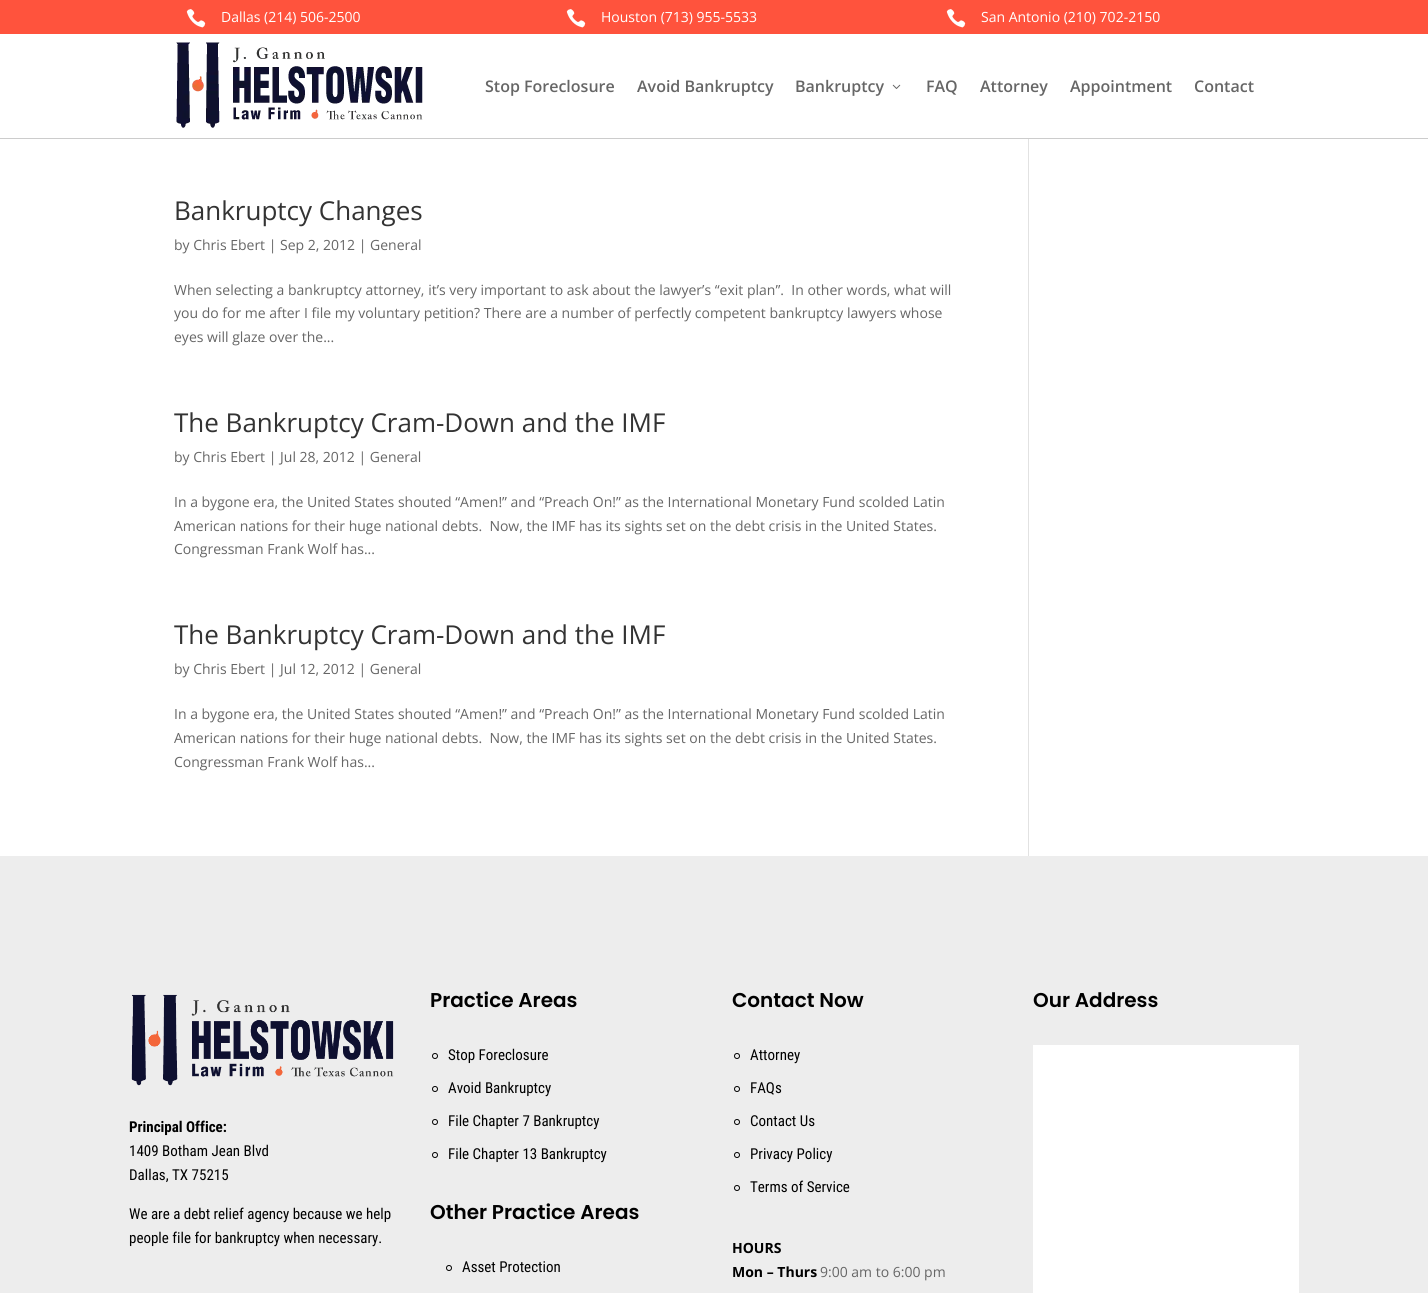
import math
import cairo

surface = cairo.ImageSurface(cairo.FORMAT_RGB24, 1428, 1293)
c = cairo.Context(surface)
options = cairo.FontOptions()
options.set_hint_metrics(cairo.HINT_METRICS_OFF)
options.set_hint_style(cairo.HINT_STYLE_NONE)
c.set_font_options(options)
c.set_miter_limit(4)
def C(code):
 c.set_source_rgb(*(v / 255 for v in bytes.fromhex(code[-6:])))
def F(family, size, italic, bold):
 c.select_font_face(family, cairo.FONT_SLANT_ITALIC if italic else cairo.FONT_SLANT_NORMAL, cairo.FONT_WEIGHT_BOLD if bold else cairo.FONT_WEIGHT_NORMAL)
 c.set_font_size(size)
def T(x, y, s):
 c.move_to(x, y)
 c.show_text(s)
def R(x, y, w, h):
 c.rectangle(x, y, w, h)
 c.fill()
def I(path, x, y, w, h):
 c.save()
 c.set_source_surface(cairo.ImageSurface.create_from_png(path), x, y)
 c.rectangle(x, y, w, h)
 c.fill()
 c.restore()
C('ffffff')
c.paint()
C('ff533d')
R(0,0,1428,34)
I('1.png',186,9,20,19)
F('Open Sans',14,0,0)
C('ffffff')
T(221,22,'Dallas (214) 506-2500')
I('1.png',566,9,20,19)
T(601,22,'Houston (713) 955-5533')
I('1.png',946,9,20,19)
T(981,22,'San Antonio (210) 702-2150')
C('cccccc')
R(0,138,1428,1)
I('2.png',176,42,247,86)
F('Open Sans SemiBold',16,0,0)
C('666666')
T(485,92,'Stop Foreclosure')
T(637,92,'Avoid Bankruptcy')
T(795,92,'Bankruptcy')
I('3.png',892,84,9,5)
T(926,92,'FAQ')
T(980,92,'Attorney')
T(1070,92,'Appointment')
T(1194,92,'Contact')
F('Open Sans',26,0,0)
C('333333')
T(174,220,'Bankruptcy Changes')
F('Open Sans',14,0,0)
C('666666')
T(174,250,'by Chris Ebert | Sep 2, 2012 | General')
T(174,295,'When selecting a bankruptcy attorney, it’s very important to ask about the lawyer’s “exit plan”.  In other words, what will')
T(174,318,'you do for me after I file my voluntary petition? There are a number of perfectly competent bankruptcy lawyers whose')
T(174,342,'eyes will glaze over the...')
F('Open Sans',26,0,0)
C('333333')
T(174,432,'The Bankruptcy Cram-Down and the IMF')
F('Open Sans',14,0,0)
C('666666')
T(174,462,'by Chris Ebert | Jul 28, 2012 | General')
T(174,507,'In a bygone era, the United States shouted “Amen!” and “Preach On!” as the International Monetary Fund scolded Latin')
T(174,531,'American nations for their huge national debts.  Now, the IMF has its sights set on the debt crisis in the United States.')
T(174,554,'Congressman Frank Wolf has...')
F('Open Sans',26,0,0)
C('333333')
T(174,644,'The Bankruptcy Cram-Down and the IMF')
F('Open Sans',14,0,0)
C('666666')
T(174,674,'by Chris Ebert | Jul 12, 2012 | General')
T(174,719,'In a bygone era, the United States shouted “Amen!” and “Preach On!” as the International Monetary Fund scolded Latin')
T(174,743,'American nations for their huge national debts.  Now, the IMF has its sights set on the debt crisis in the United States.')
T(174,767,'Congressman Frank Wolf has...')
C('e2e2e2')
R(1028,139,1,717)
C('ededed')
R(0,856,1428,437)
F('Poppins SemiBold',20,0,0)
C('000000')
T(430,1007,'Practice Areas')
c.new_path()
c.arc(435,1056,2.5,0,2 * math.pi)
c.set_line_width(1)
c.stroke()
F('Roboto Condensed',15,0,0)
T(448,1060,'Stop Foreclosure')
c.new_path()
c.arc(435,1089,2.5,0,2 * math.pi)
c.stroke()
T(448,1093,'Avoid Bankruptcy')
c.new_path()
c.arc(435,1122,2.5,0,2 * math.pi)
c.stroke()
T(448,1126,'File Chapter 7 Bankruptcy')
c.new_path()
c.arc(435,1155,2.5,0,2 * math.pi)
c.stroke()
T(448,1159,'File Chapter 13 Bankruptcy')
F('Poppins SemiBold',20,0,0)
T(430,1219,'Other Practice Areas')
c.new_path()
c.arc(449,1268,2.5,0,2 * math.pi)
c.stroke()
F('Roboto Condensed',15,0,0)
T(462,1272,'Asset Protection')
F('Poppins SemiBold',20,0,0)
T(732,1007,'Contact Now')
c.new_path()
c.arc(737,1056,2.5,0,2 * math.pi)
c.stroke()
F('Roboto Condensed',15,0,0)
T(750,1060,'Attorney')
c.new_path()
c.arc(737,1089,2.5,0,2 * math.pi)
c.stroke()
T(750,1093,'FAQs')
c.new_path()
c.arc(737,1122,2.5,0,2 * math.pi)
c.stroke()
T(750,1126,'Contact Us')
c.new_path()
c.arc(737,1155,2.5,0,2 * math.pi)
c.stroke()
T(750,1159,'Privacy Policy')
c.new_path()
c.arc(737,1188,2.5,0,2 * math.pi)
c.stroke()
T(750,1192,'Terms of Service')
F('Open Sans',14,0,1)
T(732,1253,'HOURS')
T(732,1277,'Mon – Thurs')
F('Open Sans',14,0,0)
C('666666')
T(820,1277,'9:00 am to 6:00 pm')
F('Poppins SemiBold',20,0,0)
C('000000')
T(1033,1007,'Our Address')
C('ffffff')
R(1033,1045,266,248)
I('4.png',131,994,263,92)
F('Roboto Condensed',15,0,1)
C('000000')
T(129,1132,'Principal Office:')
F('Roboto Condensed',15,0,0)
T(129,1156,'1409 Botham Jean Blvd')
T(129,1180,'Dallas, TX 75215')
T(129,1219,'We are a debt relief agency because we help')
T(129,1243,'people file for bankruptcy when necessary.')
surface.write_to_png('o.png')
